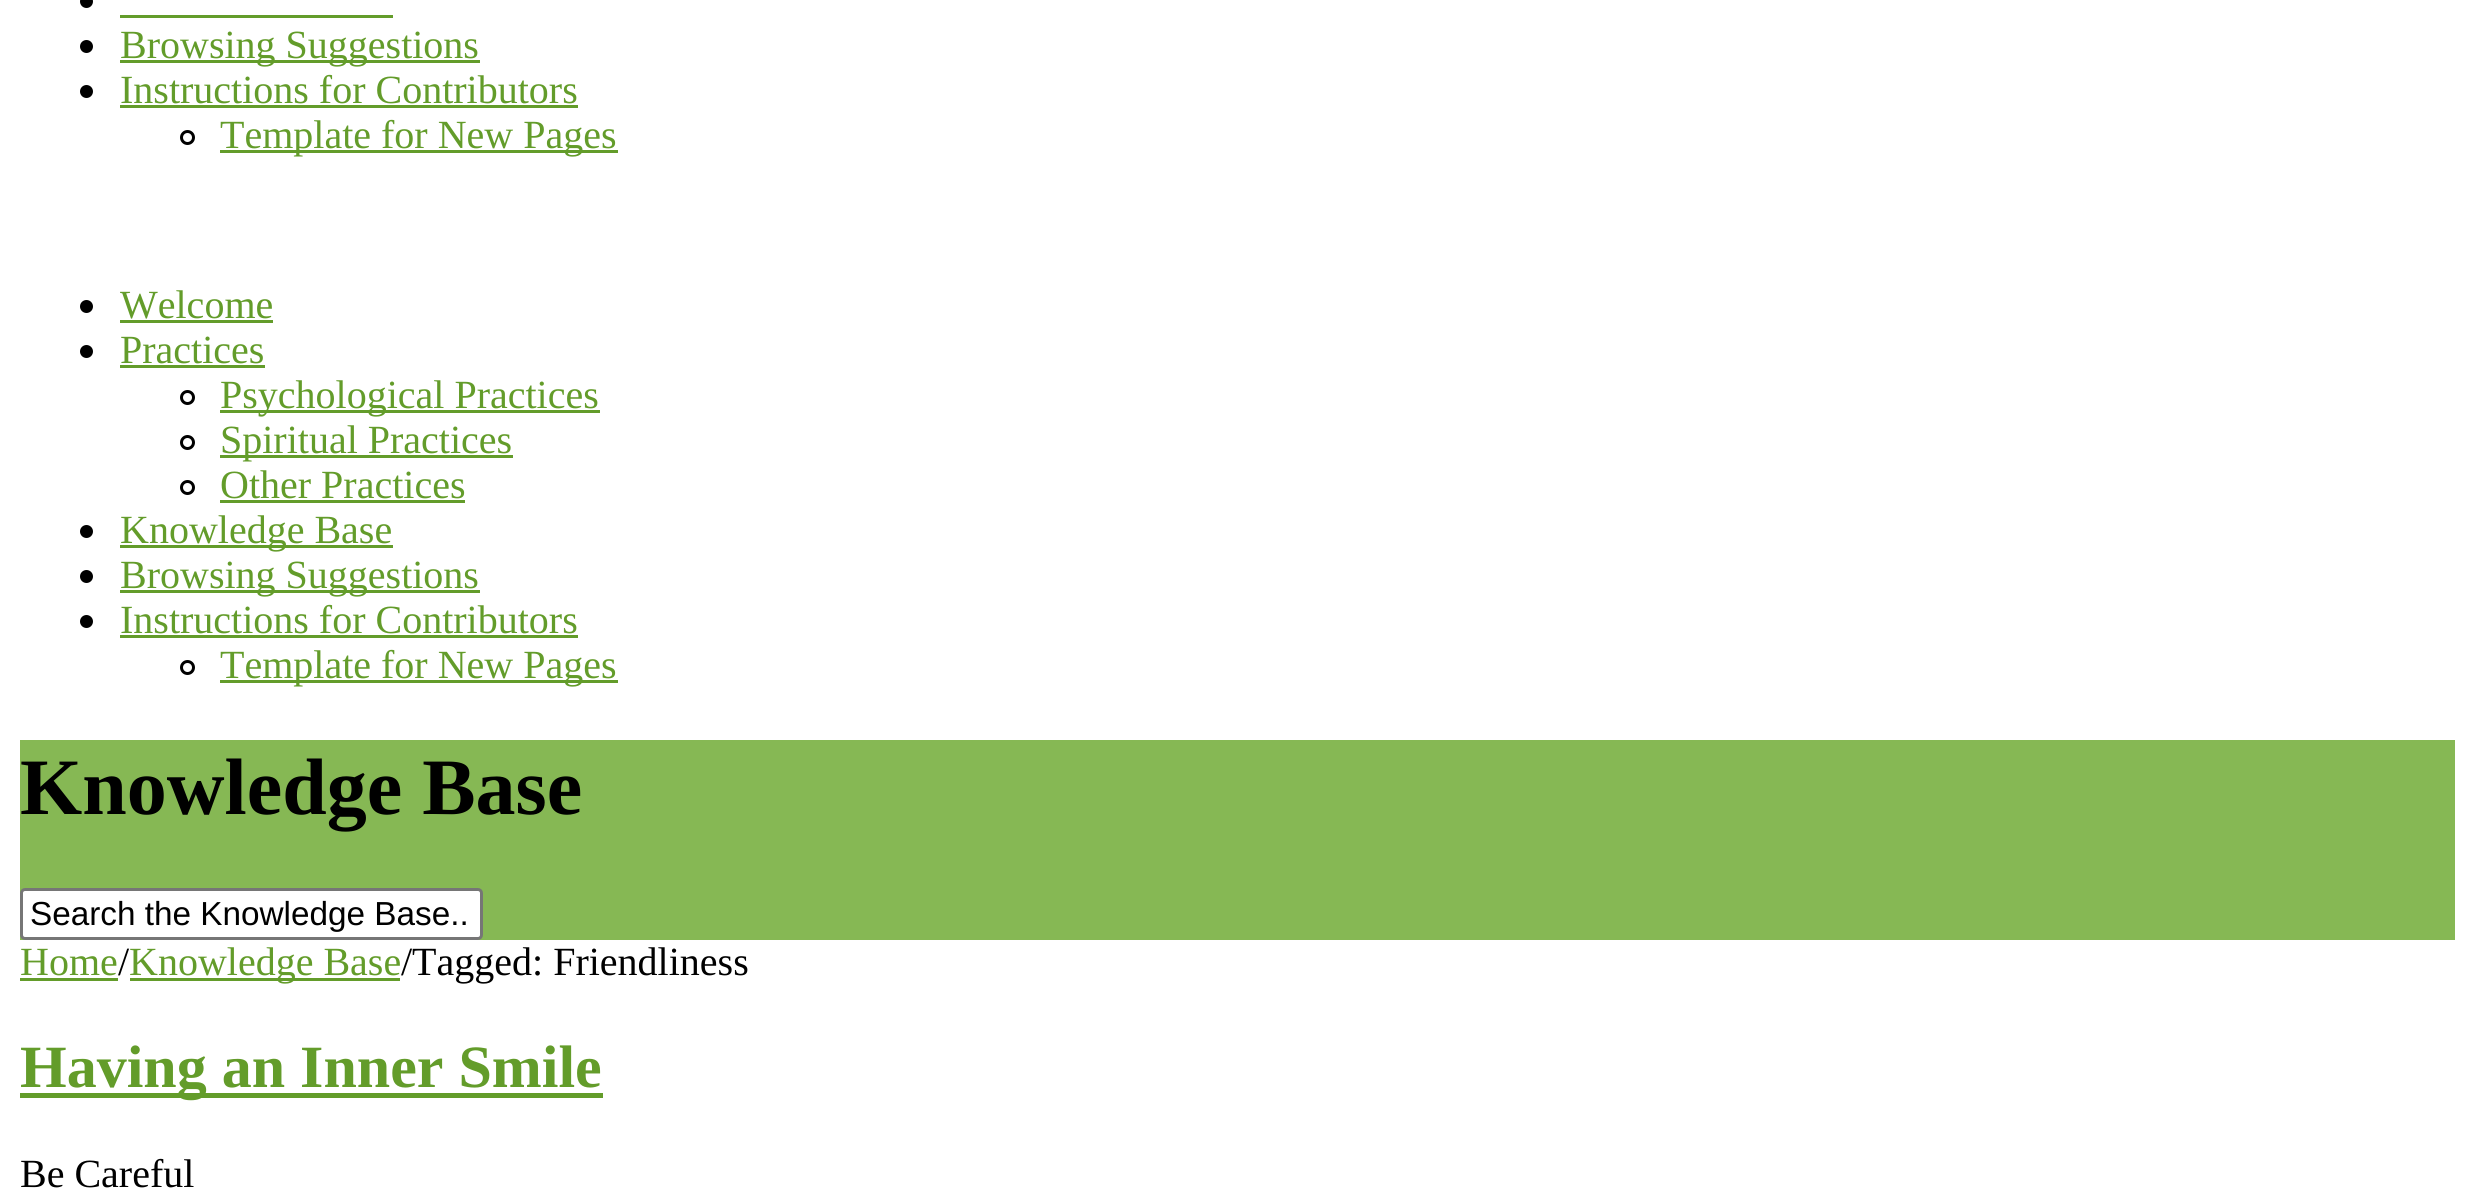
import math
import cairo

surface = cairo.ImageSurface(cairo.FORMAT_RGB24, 2474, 1189)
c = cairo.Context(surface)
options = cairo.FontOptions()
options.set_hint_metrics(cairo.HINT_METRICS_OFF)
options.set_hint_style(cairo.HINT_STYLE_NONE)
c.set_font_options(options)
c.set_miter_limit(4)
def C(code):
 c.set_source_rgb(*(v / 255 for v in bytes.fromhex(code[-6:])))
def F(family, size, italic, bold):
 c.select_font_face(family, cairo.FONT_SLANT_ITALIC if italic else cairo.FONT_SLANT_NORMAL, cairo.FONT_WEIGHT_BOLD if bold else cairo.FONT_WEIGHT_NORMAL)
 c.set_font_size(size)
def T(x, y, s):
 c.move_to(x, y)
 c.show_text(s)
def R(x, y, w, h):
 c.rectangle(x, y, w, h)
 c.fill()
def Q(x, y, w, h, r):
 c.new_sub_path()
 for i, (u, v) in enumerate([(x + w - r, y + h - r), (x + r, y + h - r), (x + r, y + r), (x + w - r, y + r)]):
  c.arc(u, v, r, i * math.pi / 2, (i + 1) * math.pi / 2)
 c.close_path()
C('ffffff')
c.paint()
C('000000')
c.arc(86.5,1.5,6.5,0,2 * math.pi)
c.fill()
C('639c2a')
R(120,15,273,3)
C('000000')
c.arc(86.5,46.5,6.5,0,2 * math.pi)
c.fill()
C('639c2a')
R(120,60,360,3)
F('Liberation Serif',40,0,0)
T(120,58,'Browsing Suggestions')
C('000000')
c.new_path()
c.arc(86.5,91.5,6.5,0,2 * math.pi)
c.fill()
C('639c2a')
T(120,103,'Instructions for Contributors')
R(120,105,458,3)
c.new_path()
c.arc(187.5,137.5,6,0,2 * math.pi)
C('000000')
c.set_line_width(3)
c.stroke()
C('639c2a')
R(220,150,398,3)
T(220,148,'Template for New Pages')
C('000000')
c.new_path()
c.arc(86.5,306.5,6.5,0,2 * math.pi)
c.fill()
C('639c2a')
T(120,318,'Welcome')
R(120,320,153,3)
C('000000')
c.new_path()
c.arc(86.5,351.5,6.5,0,2 * math.pi)
c.fill()
C('639c2a')
T(120,363,'Practices')
R(120,365,145,3)
c.new_path()
c.arc(187.5,397.5,6,0,2 * math.pi)
C('000000')
c.stroke()
C('639c2a')
R(220,410,380,3)
T(220,408,'Psychological Practices')
c.new_path()
c.arc(187.5,442.5,6,0,2 * math.pi)
C('000000')
c.stroke()
C('639c2a')
R(220,455,293,3)
T(220,453,'Spiritual Practices')
c.new_path()
c.arc(187.5,487.5,6,0,2 * math.pi)
C('000000')
c.stroke()
C('639c2a')
T(220,498,'Other Practices')
R(220,500,245,3)
C('000000')
c.new_path()
c.arc(86.5,531.5,6.5,0,2 * math.pi)
c.fill()
C('639c2a')
R(120,545,273,3)
T(120,543,'Knowledge Base')
C('000000')
c.new_path()
c.arc(86.5,576.5,6.5,0,2 * math.pi)
c.fill()
C('639c2a')
R(120,590,360,3)
T(120,588,'Browsing Suggestions')
C('000000')
c.new_path()
c.arc(86.5,621.5,6.5,0,2 * math.pi)
c.fill()
C('639c2a')
T(120,633,'Instructions for Contributors')
R(120,635,458,3)
c.new_path()
c.arc(187.5,667.5,6,0,2 * math.pi)
C('000000')
c.stroke()
C('639c2a')
R(220,680,398,3)
T(220,678,'Template for New Pages')
C('86b854')
R(20,740,2435,200)
F('Liberation Serif',80,0,1)
C('000000')
T(20,814,'Knowledge Base')
C('ffffff')
Q(21.5,889.5,460,49,3.5)
c.fill_preserve()
C('767676')
c.stroke()
F('Liberation Sans',33.3,0,0)
C('000000')
T(30,925,'Search the Knowledge Base..')
F('Liberation Serif',40,0,0)
C('639c2a')
T(20,975,'Home')
R(20,978,98,3)
C('000000')
T(118,975,'/')
C('639c2a')
R(130,978,270,3)
T(129,975,'Knowledge Base')
C('000000')
T(401,975,'/Tagged: Friendliness')
C('639c2a')
R(20,1093,583,5)
F('Liberation Serif',60,0,1)
T(20,1087,'Having an Inner Smile')
F('Liberation Serif',40,0,0)
C('000000')
T(20,1187,'Be Careful')
surface.write_to_png('o.png')
